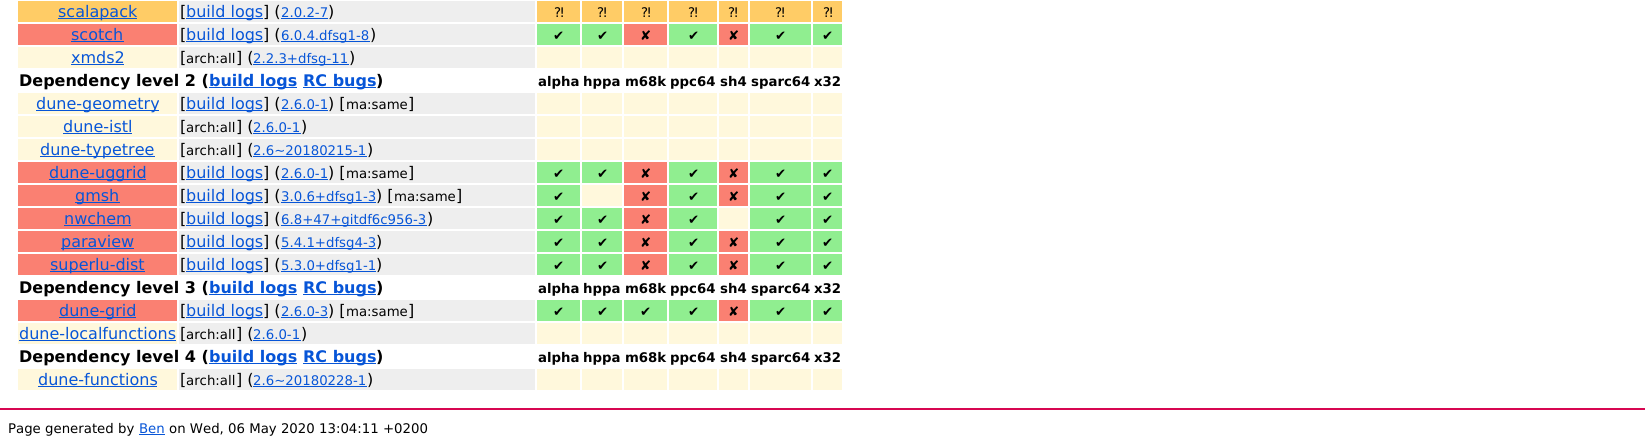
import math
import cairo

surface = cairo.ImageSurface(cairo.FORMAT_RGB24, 1645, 445)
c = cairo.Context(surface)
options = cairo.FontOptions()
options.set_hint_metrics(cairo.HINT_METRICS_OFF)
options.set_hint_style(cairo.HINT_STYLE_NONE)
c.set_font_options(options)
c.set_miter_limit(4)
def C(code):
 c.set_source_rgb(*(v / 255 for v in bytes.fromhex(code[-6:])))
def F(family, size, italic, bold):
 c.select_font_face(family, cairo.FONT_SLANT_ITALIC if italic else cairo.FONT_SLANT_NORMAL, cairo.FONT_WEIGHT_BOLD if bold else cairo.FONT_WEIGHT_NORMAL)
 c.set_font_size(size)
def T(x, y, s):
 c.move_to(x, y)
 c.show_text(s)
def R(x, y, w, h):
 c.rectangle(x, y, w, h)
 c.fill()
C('ffffff')
c.paint()
C('ffcc66')
R(18,1,159,21)
C('0755d7')
R(58,18,79,1)
F('DejaVu Sans',16,0,0)
T(58,17,'scalapack')
C('eeeeee')
R(179,1,356,21)
C('000000')
T(180,17,'[')
C('0755d7')
R(186,18,77,1)
T(186,17,'build logs')
C('000000')
T(263,17,'] (')
F('DejaVu Sans',13.3,0,0)
C('0755d7')
T(281,17,'2.0.2-7')
R(281,18,47,1)
F('DejaVu Sans',16,0,0)
C('000000')
T(328,17,')')
C('ffcc66')
R(537,1,43,21)
F('DejaVu Sans',13.3,0,0)
C('000000')
T(554,17,'⁈')
C('ffcc66')
R(582,1,40,21)
C('000000')
T(597,17,'⁈')
C('ffcc66')
R(624,1,43,21)
C('000000')
T(641,17,'⁈')
C('ffcc66')
R(669,1,48,21)
C('000000')
T(688,17,'⁈')
C('ffcc66')
R(719,1,29,21)
C('000000')
T(728,17,'⁈')
C('ffcc66')
R(750,1,61,21)
C('000000')
T(775,17,'⁈')
C('ffcc66')
R(813,1,29,21)
C('000000')
T(823,17,'⁈')
C('fa8072')
R(18,24,159,21)
F('DejaVu Sans',16,0,0)
C('0755d7')
T(71,40,'scotch')
R(71,41,53,1)
C('eeeeee')
R(179,24,356,21)
C('000000')
T(180,40,'[')
C('0755d7')
R(186,41,77,1)
T(186,40,'build logs')
C('000000')
T(263,40,'] (')
C('0755d7')
R(281,41,89,1)
F('DejaVu Sans',13.3,0,0)
T(281,40,'6.0.4.dfsg1-8')
F('DejaVu Sans',16,0,0)
C('000000')
T(370,40,')')
C('90ee90')
R(537,24,43,21)
F('DejaVu Sans',13.3,0,0)
C('000000')
T(553,40,'✔')
C('90ee90')
R(582,24,40,21)
C('000000')
T(597,40,'✔')
C('fa8072')
R(624,24,43,21)
C('000000')
T(640,40,'✘')
C('90ee90')
R(669,24,48,21)
C('000000')
T(688,40,'✔')
C('fa8072')
R(719,24,29,21)
C('000000')
T(728,40,'✘')
C('90ee90')
R(750,24,61,21)
C('000000')
T(775,40,'✔')
C('90ee90')
R(813,24,29,21)
C('000000')
T(822,40,'✔')
C('fff8dc')
R(18,47,159,21)
F('DejaVu Sans',16,0,0)
C('0755d7')
T(71,63,'xmds2')
R(71,64,53,1)
C('eeeeee')
R(179,47,356,21)
C('000000')
T(180,63,'[')
F('DejaVu Sans',13.3,0,0)
T(186,63,'arch:all')
F('DejaVu Sans',16,0,0)
T(236,63,'] (')
C('0755d7')
R(253,64,96,1)
F('DejaVu Sans',13.3,0,0)
T(253,63,'2.2.3+dfsg-11')
F('DejaVu Sans',16,0,0)
C('000000')
T(349,63,')')
C('fff8dc')
R(537,47,43,21)
R(582,47,40,21)
R(624,47,43,21)
R(669,47,48,21)
R(719,47,29,21)
R(750,47,61,21)
R(813,47,29,21)
F('DejaVu Sans',16,0,1)
C('000000')
T(19,86,'Dependency level 2 (')
C('0755d7')
R(209,87,88,1)
T(209,86,'build logs')
R(303,87,73,1)
T(303,86,'RC bugs')
C('000000')
T(376,86,')')
F('DejaVu Sans',13.3,0,1)
T(538,86,'alpha')
T(583,86,'hppa')
T(625,86,'m68k')
T(670,86,'ppc64')
T(720,86,'sh4')
T(751,86,'sparc64')
T(814,86,'x32')
C('fff8dc')
R(18,93,159,21)
C('0755d7')
R(36,110,123,1)
F('DejaVu Sans',16,0,0)
T(36,109,'dune-geometry')
C('eeeeee')
R(179,93,356,21)
C('000000')
T(180,109,'[')
C('0755d7')
R(186,110,77,1)
T(186,109,'build logs')
C('000000')
T(263,109,'] (')
F('DejaVu Sans',13.3,0,0)
C('0755d7')
T(281,109,'2.6.0-1')
R(281,110,47,1)
F('DejaVu Sans',16,0,0)
C('000000')
T(328,109,') [')
F('DejaVu Sans',13.3,0,0)
T(346,109,'ma:same')
F('DejaVu Sans',16,0,0)
T(408,109,']')
C('fff8dc')
R(537,93,43,21)
R(582,93,40,21)
R(624,93,43,21)
R(669,93,48,21)
R(719,93,29,21)
R(750,93,61,21)
R(813,93,29,21)
R(18,116,159,21)
C('0755d7')
T(63,132,'dune-istl')
R(63,133,69,1)
C('eeeeee')
R(179,116,356,21)
C('000000')
T(180,132,'[')
F('DejaVu Sans',13.3,0,0)
T(186,132,'arch:all')
F('DejaVu Sans',16,0,0)
T(236,132,'] (')
F('DejaVu Sans',13.3,0,0)
C('0755d7')
T(253,132,'2.6.0-1')
R(253,133,48,1)
F('DejaVu Sans',16,0,0)
C('000000')
T(301,132,')')
C('fff8dc')
R(537,116,43,21)
R(582,116,40,21)
R(624,116,43,21)
R(669,116,48,21)
R(719,116,29,21)
R(750,116,61,21)
R(813,116,29,21)
R(18,139,159,21)
C('0755d7')
R(40,156,115,1)
T(40,155,'dune-typetree')
C('eeeeee')
R(179,139,356,21)
C('000000')
T(180,155,'[')
F('DejaVu Sans',13.3,0,0)
T(186,155,'arch:all')
F('DejaVu Sans',16,0,0)
T(236,155,'] (')
F('DejaVu Sans',13.3,0,0)
C('0755d7')
T(253,155,'2.6~20180215-1')
R(253,156,114,1)
F('DejaVu Sans',16,0,0)
C('000000')
T(367,155,')')
C('fff8dc')
R(537,139,43,21)
R(582,139,40,21)
R(624,139,43,21)
R(669,139,48,21)
R(719,139,29,21)
R(750,139,61,21)
R(813,139,29,21)
C('fa8072')
R(18,162,159,21)
C('0755d7')
R(49,179,97,1)
T(49,178,'dune-uggrid')
C('eeeeee')
R(179,162,356,21)
C('000000')
T(180,178,'[')
C('0755d7')
R(186,179,77,1)
T(186,178,'build logs')
C('000000')
T(263,178,'] (')
F('DejaVu Sans',13.3,0,0)
C('0755d7')
T(281,178,'2.6.0-1')
R(281,179,47,1)
F('DejaVu Sans',16,0,0)
C('000000')
T(328,178,') [')
F('DejaVu Sans',13.3,0,0)
T(346,178,'ma:same')
F('DejaVu Sans',16,0,0)
T(408,178,']')
C('90ee90')
R(537,162,43,21)
F('DejaVu Sans',13.3,0,0)
C('000000')
T(553,178,'✔')
C('90ee90')
R(582,162,40,21)
C('000000')
T(597,178,'✔')
C('fa8072')
R(624,162,43,21)
C('000000')
T(640,178,'✘')
C('90ee90')
R(669,162,48,21)
C('000000')
T(688,178,'✔')
C('fa8072')
R(719,162,29,21)
C('000000')
T(728,178,'✘')
C('90ee90')
R(750,162,61,21)
C('000000')
T(775,178,'✔')
C('90ee90')
R(813,162,29,21)
C('000000')
T(822,178,'✔')
C('fa8072')
R(18,185,159,21)
C('0755d7')
R(75,202,45,1)
F('DejaVu Sans',16,0,0)
T(75,201,'gmsh')
C('eeeeee')
R(179,185,356,21)
C('000000')
T(180,201,'[')
C('0755d7')
R(186,202,77,1)
T(186,201,'build logs')
C('000000')
T(263,201,'] (')
C('0755d7')
R(281,202,95,1)
F('DejaVu Sans',13.3,0,0)
T(281,201,'3.0.6+dfsg1-3')
F('DejaVu Sans',16,0,0)
C('000000')
T(376,201,') [')
F('DejaVu Sans',13.3,0,0)
T(394,201,'ma:same')
F('DejaVu Sans',16,0,0)
T(456,201,']')
C('90ee90')
R(537,185,43,21)
F('DejaVu Sans',13.3,0,0)
C('000000')
T(553,201,'✔')
C('fff8dc')
R(582,185,40,21)
C('fa8072')
R(624,185,43,21)
C('000000')
T(640,201,'✘')
C('90ee90')
R(669,185,48,21)
C('000000')
T(688,201,'✔')
C('fa8072')
R(719,185,29,21)
C('000000')
T(728,201,'✘')
C('90ee90')
R(750,185,61,21)
C('000000')
T(775,201,'✔')
C('90ee90')
R(813,185,29,21)
C('000000')
T(822,201,'✔')
C('fa8072')
R(18,208,159,21)
F('DejaVu Sans',16,0,0)
C('0755d7')
T(64,224,'nwchem')
R(64,225,67,1)
C('eeeeee')
R(179,208,356,21)
C('000000')
T(180,224,'[')
C('0755d7')
R(186,225,77,1)
T(186,224,'build logs')
C('000000')
T(263,224,'] (')
C('0755d7')
R(281,225,146,1)
F('DejaVu Sans',13.3,0,0)
T(281,224,'6.8+47+gitdf6c956-3')
F('DejaVu Sans',16,0,0)
C('000000')
T(427,224,')')
C('90ee90')
R(537,208,43,21)
F('DejaVu Sans',13.3,0,0)
C('000000')
T(553,224,'✔')
C('90ee90')
R(582,208,40,21)
C('000000')
T(597,224,'✔')
C('fa8072')
R(624,208,43,21)
C('000000')
T(640,224,'✘')
C('90ee90')
R(669,208,48,21)
C('000000')
T(688,224,'✔')
C('fff8dc')
R(719,208,29,21)
C('90ee90')
R(750,208,61,21)
C('000000')
T(775,224,'✔')
C('90ee90')
R(813,208,29,21)
C('000000')
T(822,224,'✔')
C('fa8072')
R(18,231,159,21)
C('0755d7')
R(61,248,73,1)
F('DejaVu Sans',16,0,0)
T(61,247,'paraview')
C('eeeeee')
R(179,231,356,21)
C('000000')
T(180,247,'[')
C('0755d7')
R(186,248,77,1)
T(186,247,'build logs')
C('000000')
T(263,247,'] (')
C('0755d7')
R(281,248,95,1)
F('DejaVu Sans',13.3,0,0)
T(281,247,'5.4.1+dfsg4-3')
F('DejaVu Sans',16,0,0)
C('000000')
T(376,247,')')
C('90ee90')
R(537,231,43,21)
F('DejaVu Sans',13.3,0,0)
C('000000')
T(553,247,'✔')
C('90ee90')
R(582,231,40,21)
C('000000')
T(597,247,'✔')
C('fa8072')
R(624,231,43,21)
C('000000')
T(640,247,'✘')
C('90ee90')
R(669,231,48,21)
C('000000')
T(688,247,'✔')
C('fa8072')
R(719,231,29,21)
C('000000')
T(728,247,'✘')
C('90ee90')
R(750,231,61,21)
C('000000')
T(775,247,'✔')
C('90ee90')
R(813,231,29,21)
C('000000')
T(822,247,'✔')
C('fa8072')
R(18,254,159,21)
C('0755d7')
R(50,271,95,1)
F('DejaVu Sans',16,0,0)
T(50,270,'superlu-dist')
C('eeeeee')
R(179,254,356,21)
C('000000')
T(180,270,'[')
C('0755d7')
R(186,271,77,1)
T(186,270,'build logs')
C('000000')
T(263,270,'] (')
C('0755d7')
R(281,271,95,1)
F('DejaVu Sans',13.3,0,0)
T(281,270,'5.3.0+dfsg1-1')
F('DejaVu Sans',16,0,0)
C('000000')
T(376,270,')')
C('90ee90')
R(537,254,43,21)
F('DejaVu Sans',13.3,0,0)
C('000000')
T(553,270,'✔')
C('90ee90')
R(582,254,40,21)
C('000000')
T(597,270,'✔')
C('fa8072')
R(624,254,43,21)
C('000000')
T(640,270,'✘')
C('90ee90')
R(669,254,48,21)
C('000000')
T(688,270,'✔')
C('fa8072')
R(719,254,29,21)
C('000000')
T(728,270,'✘')
C('90ee90')
R(750,254,61,21)
C('000000')
T(775,270,'✔')
C('90ee90')
R(813,254,29,21)
C('000000')
T(822,270,'✔')
F('DejaVu Sans',16,0,1)
T(19,293,'Dependency level 3 (')
C('0755d7')
R(209,294,88,1)
T(209,293,'build logs')
R(303,294,73,1)
T(303,293,'RC bugs')
C('000000')
T(376,293,')')
F('DejaVu Sans',13.3,0,1)
T(538,293,'alpha')
T(583,293,'hppa')
T(625,293,'m68k')
T(670,293,'ppc64')
T(720,293,'sh4')
T(751,293,'sparc64')
T(814,293,'x32')
C('fa8072')
R(18,300,159,21)
C('0755d7')
R(59,317,77,1)
F('DejaVu Sans',16,0,0)
T(59,316,'dune-grid')
C('eeeeee')
R(179,300,356,21)
C('000000')
T(180,316,'[')
C('0755d7')
R(186,317,77,1)
T(186,316,'build logs')
C('000000')
T(263,316,'] (')
F('DejaVu Sans',13.3,0,0)
C('0755d7')
T(281,316,'2.6.0-3')
R(281,317,47,1)
F('DejaVu Sans',16,0,0)
C('000000')
T(328,316,') [')
F('DejaVu Sans',13.3,0,0)
T(346,316,'ma:same')
F('DejaVu Sans',16,0,0)
T(408,316,']')
C('90ee90')
R(537,300,43,21)
F('DejaVu Sans',13.3,0,0)
C('000000')
T(553,316,'✔')
C('90ee90')
R(582,300,40,21)
C('000000')
T(597,316,'✔')
C('90ee90')
R(624,300,43,21)
C('000000')
T(640,316,'✔')
C('90ee90')
R(669,300,48,21)
C('000000')
T(688,316,'✔')
C('fa8072')
R(719,300,29,21)
C('000000')
T(728,316,'✘')
C('90ee90')
R(750,300,61,21)
C('000000')
T(775,316,'✔')
C('90ee90')
R(813,300,29,21)
C('000000')
T(822,316,'✔')
C('fff8dc')
R(18,323,159,21)
F('DejaVu Sans',16,0,0)
C('0755d7')
T(19,339,'dune-localfunctions')
R(19,340,157,1)
C('eeeeee')
R(179,323,356,21)
C('000000')
T(180,339,'[')
F('DejaVu Sans',13.3,0,0)
T(186,339,'arch:all')
F('DejaVu Sans',16,0,0)
T(236,339,'] (')
F('DejaVu Sans',13.3,0,0)
C('0755d7')
T(253,339,'2.6.0-1')
R(253,340,48,1)
F('DejaVu Sans',16,0,0)
C('000000')
T(301,339,')')
C('fff8dc')
R(537,323,43,21)
R(582,323,40,21)
R(624,323,43,21)
R(669,323,48,21)
R(719,323,29,21)
R(750,323,61,21)
R(813,323,29,21)
F('DejaVu Sans',16,0,1)
C('000000')
T(19,362,'Dependency level 4 (')
C('0755d7')
R(209,363,88,1)
T(209,362,'build logs')
R(303,363,73,1)
T(303,362,'RC bugs')
C('000000')
T(376,362,')')
F('DejaVu Sans',13.3,0,1)
T(538,362,'alpha')
T(583,362,'hppa')
T(625,362,'m68k')
T(670,362,'ppc64')
T(720,362,'sh4')
T(751,362,'sparc64')
T(814,362,'x32')
C('fff8dc')
R(18,369,159,21)
F('DejaVu Sans',16,0,0)
C('0755d7')
T(38,385,'dune-functions')
R(38,386,119,1)
C('eeeeee')
R(179,369,356,21)
C('000000')
T(180,385,'[')
F('DejaVu Sans',13.3,0,0)
T(186,385,'arch:all')
F('DejaVu Sans',16,0,0)
T(236,385,'] (')
F('DejaVu Sans',13.3,0,0)
C('0755d7')
T(253,385,'2.6~20180228-1')
R(253,386,114,1)
F('DejaVu Sans',16,0,0)
C('000000')
T(367,385,')')
C('fff8dc')
R(537,369,43,21)
R(582,369,40,21)
R(624,369,43,21)
R(669,369,48,21)
R(719,369,29,21)
R(750,369,61,21)
R(813,369,29,21)
C('d70751')
R(0,408,1645,2)
F('DejaVu Sans',13.3,0,0)
C('000000')
T(8,433,'Page generated by')
C('0755d7')
T(139,433,'Ben')
R(139,434,26,1)
C('000000')
T(169,433,'on Wed, 06 May 2020 13:04:11 +0200')
surface.write_to_png('o.png')
